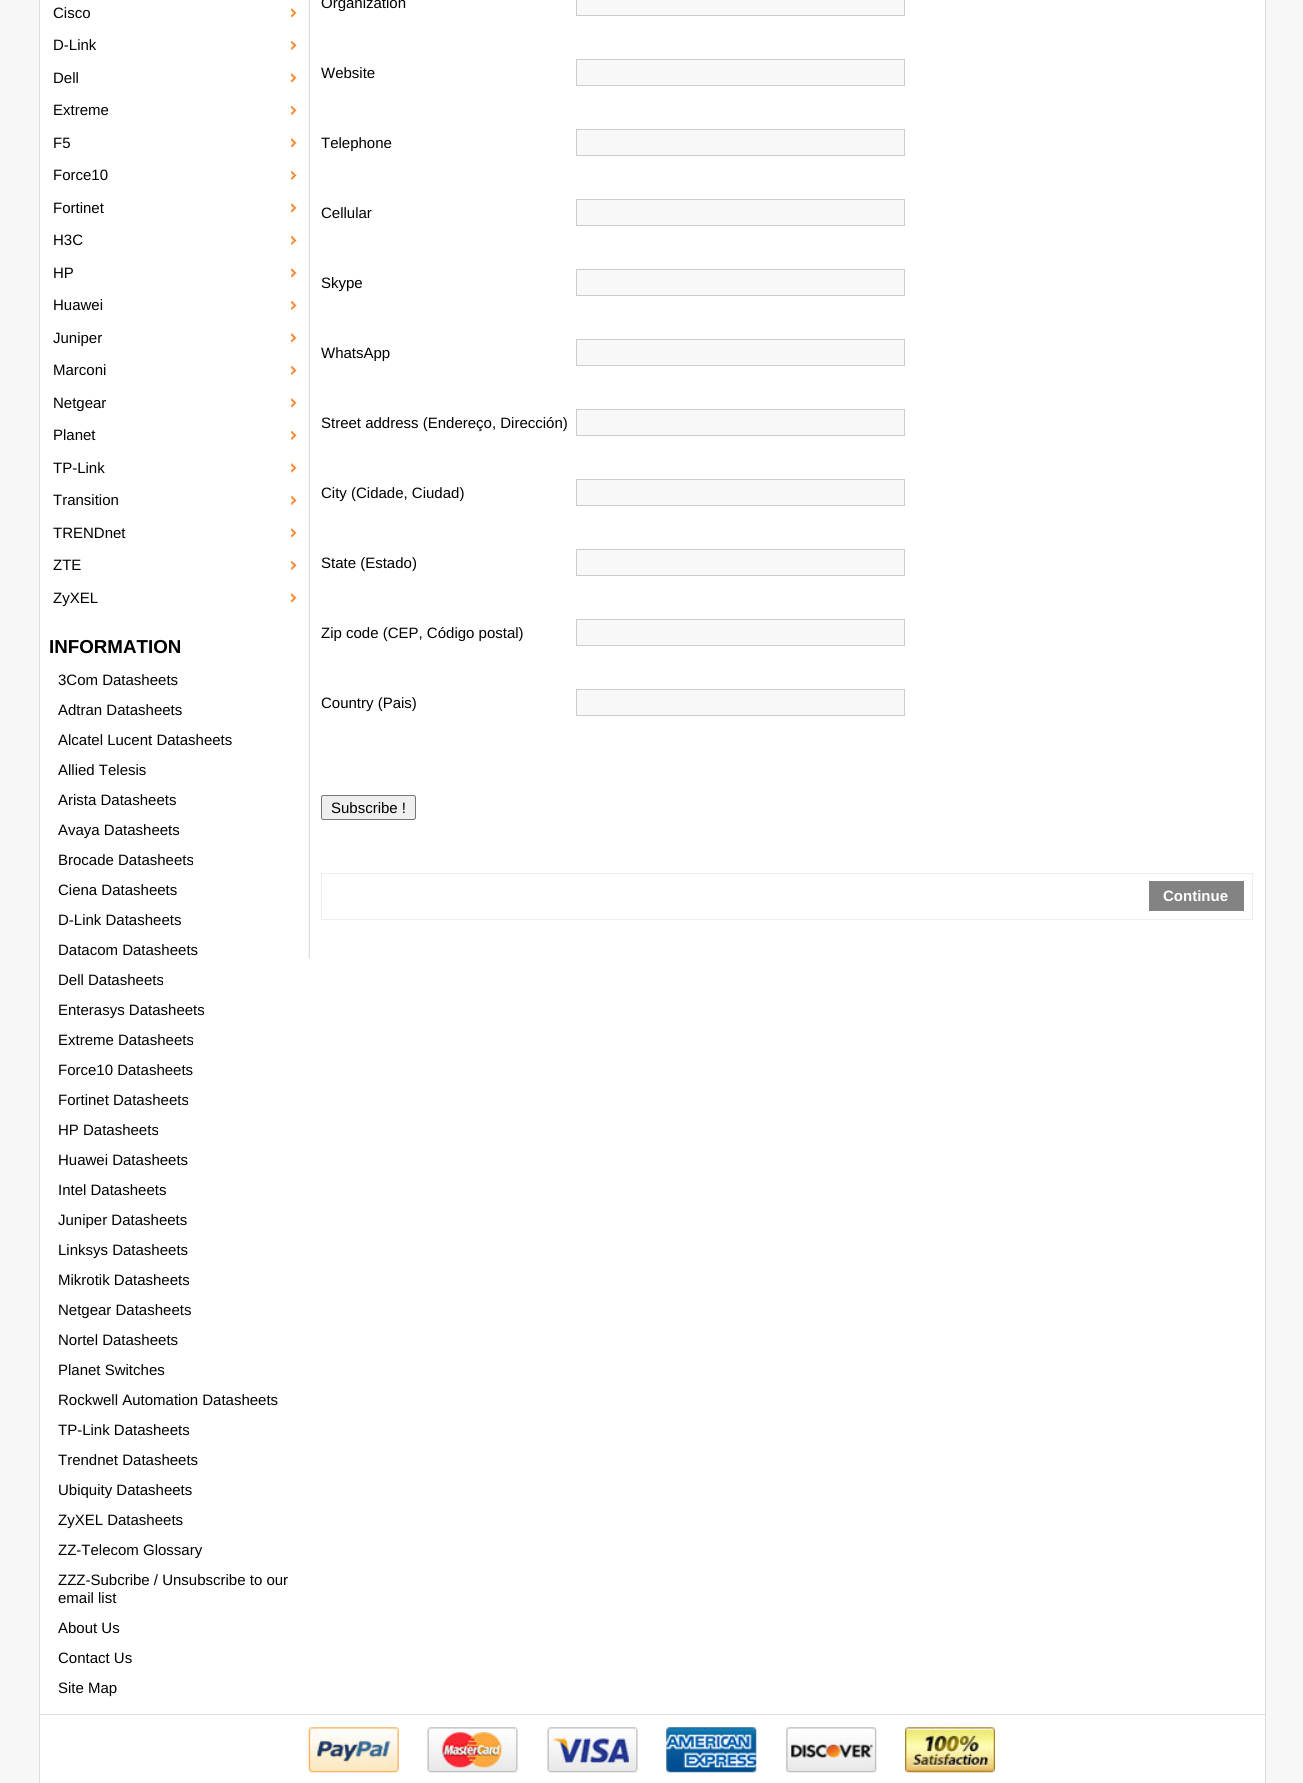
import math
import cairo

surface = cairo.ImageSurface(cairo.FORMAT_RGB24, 1303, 1783)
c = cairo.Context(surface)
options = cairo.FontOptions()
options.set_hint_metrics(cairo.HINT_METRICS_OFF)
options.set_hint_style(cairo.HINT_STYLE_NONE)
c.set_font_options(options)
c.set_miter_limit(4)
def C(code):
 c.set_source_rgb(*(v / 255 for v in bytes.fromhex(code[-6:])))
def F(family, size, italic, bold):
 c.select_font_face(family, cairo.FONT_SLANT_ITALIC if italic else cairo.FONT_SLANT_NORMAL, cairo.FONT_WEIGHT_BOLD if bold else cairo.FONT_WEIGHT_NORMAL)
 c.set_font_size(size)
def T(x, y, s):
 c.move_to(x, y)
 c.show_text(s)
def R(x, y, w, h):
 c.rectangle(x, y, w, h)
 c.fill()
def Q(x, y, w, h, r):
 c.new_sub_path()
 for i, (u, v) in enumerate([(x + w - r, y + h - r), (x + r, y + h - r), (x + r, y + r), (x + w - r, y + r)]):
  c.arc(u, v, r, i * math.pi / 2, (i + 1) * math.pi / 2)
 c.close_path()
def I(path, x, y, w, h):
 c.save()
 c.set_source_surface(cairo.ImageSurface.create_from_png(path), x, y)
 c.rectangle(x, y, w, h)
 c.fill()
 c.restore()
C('f7f7f7')
c.paint()
C('ffffff')
R(40,0,1225,1783)
C('dddddd')
R(1265,0,1,1783)
R(39,0,1,1783)
I('1.png',308,0,2,959)
I('2.png',291,8,6,10)
F('Liberation Sans',15,0,0)
C('000000')
T(53,18,'Cisco')
I('3.png',291,41,6,9)
T(53,50,'D-Link')
I('2.png',291,73,6,10)
T(53,83,'Dell')
I('3.png',291,106,6,9)
T(53,115,'Extreme')
I('2.png',291,138,6,10)
T(53,148,'F5')
I('3.png',291,171,6,9)
T(53,180,'Force10')
I('2.png',291,203,6,10)
T(53,213,'Fortinet')
I('3.png',291,236,6,9)
T(53,245,'H3C')
I('2.png',291,268,6,10)
T(53,278,'HP')
I('4.png',291,301,6,9)
T(53,310,'Huawei')
I('2.png',291,333,6,10)
T(53,343,'Juniper')
I('3.png',291,366,6,9)
T(53,375,'Marconi')
I('2.png',291,398,6,10)
T(53,408,'Netgear')
I('3.png',291,431,6,9)
T(53,440,'Planet')
I('2.png',291,463,6,10)
T(53,473,'TP-Link')
I('3.png',291,496,6,9)
T(53,505,'Transition')
I('2.png',291,528,6,10)
T(53,538,'TRENDnet')
I('3.png',291,561,6,9)
T(53,570,'ZTE')
I('2.png',291,593,6,10)
T(53,603,'ZyXEL')
F('Liberation Sans',18.75,0,1)
T(49,653,'INFORMATION')
F('Liberation Sans',15,0,0)
T(58,685,'3Com Datasheets')
T(58,715,'Adtran Datasheets')
T(58,745,'Alcatel Lucent Datasheets')
T(58,775,'Allied Telesis')
T(58,805,'Arista Datasheets')
T(58,835,'Avaya Datasheets')
T(58,865,'Brocade Datasheets')
T(58,895,'Ciena Datasheets')
T(58,925,'D-Link Datasheets')
T(58,955,'Datacom Datasheets')
T(58,985,'Dell Datasheets')
T(58,1015,'Enterasys Datasheets')
T(58,1045,'Extreme Datasheets')
T(58,1075,'Force10 Datasheets')
T(58,1105,'Fortinet Datasheets')
T(58,1135,'HP Datasheets')
T(58,1165,'Huawei Datasheets')
T(58,1195,'Intel Datasheets')
T(58,1225,'Juniper Datasheets')
T(58,1255,'Linksys Datasheets')
T(58,1285,'Mikrotik Datasheets')
T(58,1315,'Netgear Datasheets')
T(58,1345,'Nortel Datasheets')
T(58,1375,'Planet Switches')
T(58,1405,'Rockwell Automation Datasheets')
T(58,1435,'TP-Link Datasheets')
T(58,1465,'Trendnet Datasheets')
T(58,1495,'Ubiquity Datasheets')
T(58,1525,'ZyXEL Datasheets')
T(58,1555,'ZZ-Telecom Glossary')
T(58,1585,'ZZZ-Subcribe / Unsubscribe to our')
T(58,1603,'email list')
T(58,1633,'About Us')
T(58,1663,'Contact Us')
T(58,1693,'Site Map')
T(321,8,'Organization')
C('f8f8f8')
c.rectangle(576.5,-.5,328,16)
c.fill_preserve()
C('cccccc')
c.set_line_width(1)
c.stroke()
C('000000')
T(321,78,'Website')
C('f8f8f8')
c.rectangle(576.5,59.5,328,26)
c.fill_preserve()
C('cccccc')
c.stroke()
C('000000')
T(321,148,'Telephone')
C('f8f8f8')
c.rectangle(576.5,129.5,328,26)
c.fill_preserve()
C('cccccc')
c.stroke()
C('000000')
T(321,218,'Cellular')
C('f8f8f8')
c.rectangle(576.5,199.5,328,26)
c.fill_preserve()
C('cccccc')
c.stroke()
C('000000')
T(321,288,'Skype')
C('f8f8f8')
c.rectangle(576.5,269.5,328,26)
c.fill_preserve()
C('cccccc')
c.stroke()
C('000000')
T(321,358,'WhatsApp')
C('f8f8f8')
c.rectangle(576.5,339.5,328,26)
c.fill_preserve()
C('cccccc')
c.stroke()
C('000000')
T(321,428,'Street address (Endereço, Dirección)')
C('f8f8f8')
c.rectangle(576.5,409.5,328,26)
c.fill_preserve()
C('cccccc')
c.stroke()
C('000000')
T(321,498,'City (Cidade, Ciudad)')
C('f8f8f8')
c.rectangle(576.5,479.5,328,26)
c.fill_preserve()
C('cccccc')
c.stroke()
C('000000')
T(321,568,'State (Estado)')
C('f8f8f8')
c.rectangle(576.5,549.5,328,26)
c.fill_preserve()
C('cccccc')
c.stroke()
C('000000')
T(321,638,'Zip code (CEP, Código postal)')
C('f8f8f8')
c.rectangle(576.5,619.5,328,26)
c.fill_preserve()
C('cccccc')
c.stroke()
C('000000')
T(321,708,'Country (Pais)')
C('f8f8f8')
c.rectangle(576.5,689.5,328,26)
c.fill_preserve()
C('cccccc')
c.stroke()
C('efefef')
Q(321.5,795.5,94,24,2)
c.fill_preserve()
C('767676')
c.stroke()
C('000000')
T(331,813,'Subscribe !')
c.rectangle(321.5,873.5,931,46)
C('eeeeee')
c.stroke()
C('838383')
R(1149,881,95,30)
F('Liberation Sans',15,0,1)
C('ffffff')
T(1163,901,'Continue')
C('dddddd')
R(40,1714,1225,1)
I('5.png',308,1727,91,46)
I('6.png',427,1727,91,46)
I('7.png',547,1727,91,46)
I('8.png',666,1727,91,46)
I('9.png',786,1727,91,46)
I('10.png',905,1727,90,46)
surface.write_to_png('o.png')
